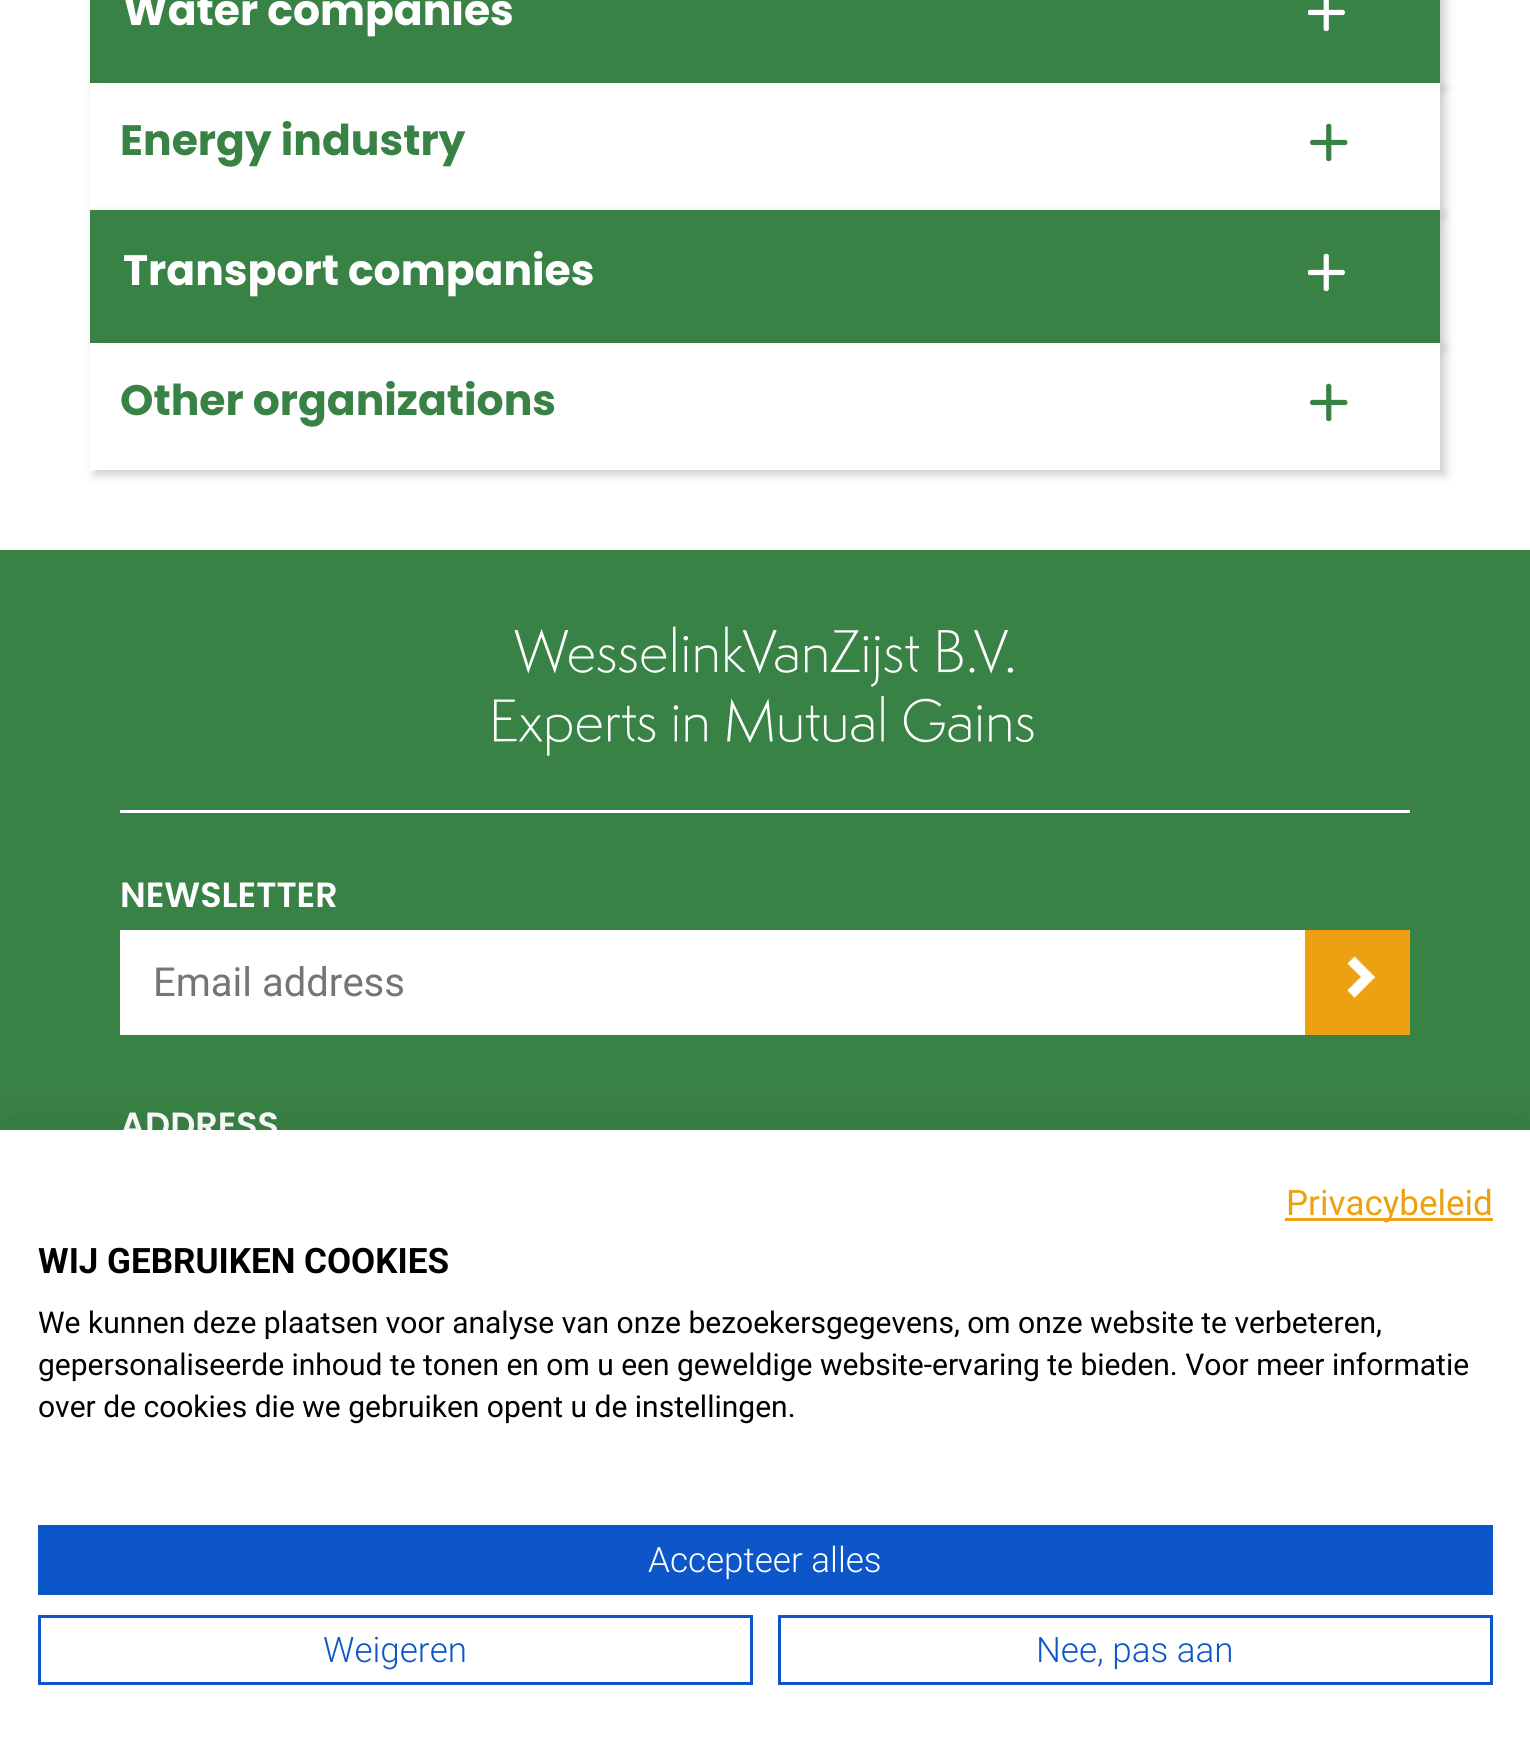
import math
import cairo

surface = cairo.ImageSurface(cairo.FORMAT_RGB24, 1530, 1751)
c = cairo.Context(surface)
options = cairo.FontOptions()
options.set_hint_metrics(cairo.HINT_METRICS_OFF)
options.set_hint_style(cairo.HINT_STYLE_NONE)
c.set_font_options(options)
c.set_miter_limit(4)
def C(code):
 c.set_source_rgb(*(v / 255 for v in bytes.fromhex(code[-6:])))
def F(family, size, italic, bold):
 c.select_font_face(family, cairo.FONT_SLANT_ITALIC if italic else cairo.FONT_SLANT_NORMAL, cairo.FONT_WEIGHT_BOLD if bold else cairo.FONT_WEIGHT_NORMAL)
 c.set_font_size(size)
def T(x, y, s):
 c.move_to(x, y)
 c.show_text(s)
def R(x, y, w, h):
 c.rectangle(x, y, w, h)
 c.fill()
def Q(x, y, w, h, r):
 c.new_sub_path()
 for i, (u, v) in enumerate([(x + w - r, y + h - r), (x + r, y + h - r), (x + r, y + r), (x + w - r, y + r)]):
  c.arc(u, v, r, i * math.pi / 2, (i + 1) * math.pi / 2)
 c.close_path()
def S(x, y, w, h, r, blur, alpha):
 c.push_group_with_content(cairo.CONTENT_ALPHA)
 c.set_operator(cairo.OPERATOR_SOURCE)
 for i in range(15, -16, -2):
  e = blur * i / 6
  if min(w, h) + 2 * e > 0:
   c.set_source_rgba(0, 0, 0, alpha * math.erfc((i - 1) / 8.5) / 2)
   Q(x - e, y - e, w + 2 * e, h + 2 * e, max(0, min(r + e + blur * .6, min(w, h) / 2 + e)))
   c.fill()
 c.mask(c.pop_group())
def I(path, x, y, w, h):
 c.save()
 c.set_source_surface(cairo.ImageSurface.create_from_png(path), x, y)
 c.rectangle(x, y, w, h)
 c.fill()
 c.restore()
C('ffffff')
c.paint()
C('000000')
S(95,-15,1350,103,0,5,.2)
C('398245')
R(90,0,1350,83)
F('Poppins',42.5,0,1)
C('ffffff')
T(123,25,'Water companies')
I('1.png',1308,0,37,32)
C('000000')
S(95,88,1350,127,0,5,.2)
C('ffffff')
R(90,83,1350,127)
C('398245')
T(120,155,'Energy industry')
I('2.png',1310,123,38,39)
C('000000')
S(95,215,1350,133,0,5,.2)
C('398245')
R(90,210,1350,133)
C('ffffff')
T(123,285,'Transport companies')
I('3.png',1308,253,37,39)
C('000000')
S(95,348,1350,127,0,5,.2)
C('ffffff')
R(90,343,1350,127)
C('398245')
T(120,415,'Other organizations')
I('2.png',1310,383,38,39)
R(0,550,1530,580)
I('4.png',494,626,540,130)
C('ffffff')
R(120,810,1290,3)
F('Poppins SemiBold',35,0,0)
T(120,907,'NEWSLETTER')
R(120,930,1185,105)
F('Roboto',40,0,0)
C('757575')
T(153,996,'Email address')
C('eda011')
R(1305,930,105,105)
I('5.png',1347,956,29,42)
F('Poppins SemiBold',35,0,0)
C('ffffff')
T(120,1137,'ADDRESS')
C('000000')
S(0,1130,1530,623,0,30,.1)
C('ffffff')
R(0,1130,1530,621)
C('eda011')
R(1285,1218,208,3)
F('Roboto',35,0,0)
T(1286,1215,'Privacybeleid')
F('Roboto',35,0,1)
C('000000')
T(38,1273,'WIJ GEBRUIKEN COOKIES')
F('Roboto',30,0,0)
T(38,1333,'We kunnen deze plaatsen voor analyse van onze bezoekersgegevens, om onze website te verbeteren,')
T(38,1375,'gepersonaliseerde inhoud te tonen en om u een geweldige website-ervaring te bieden. Voor meer informatie')
T(38,1417,'over de cookies die we gebruiken opent u de instellingen.')
C('0d56c9')
R(38,1525,1455,70)
F('Roboto Light',35,0,0)
C('ffffff')
T(648,1572,'Accepteer alles')
c.rectangle(39.5,1616.5,712,67)
C('0d56c9')
c.set_line_width(3)
c.stroke()
T(323,1662,'Weigeren')
c.rectangle(779.5,1616.5,712,67)
c.stroke()
T(1036,1662,'Nee, pas aan')
surface.write_to_png('o.png')
